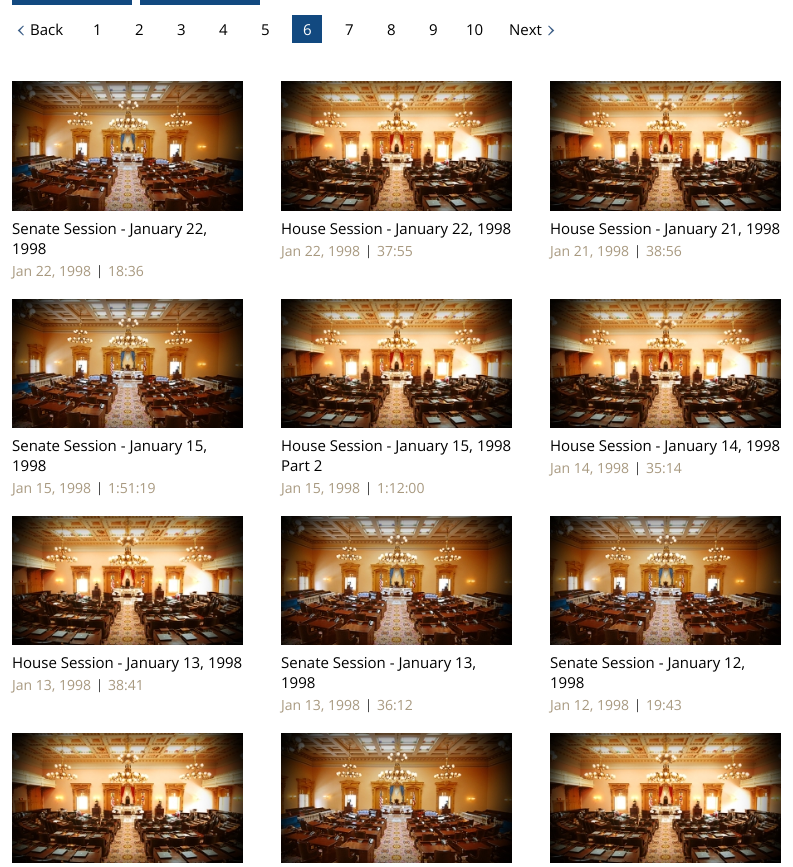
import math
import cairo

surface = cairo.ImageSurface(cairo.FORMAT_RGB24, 793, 867)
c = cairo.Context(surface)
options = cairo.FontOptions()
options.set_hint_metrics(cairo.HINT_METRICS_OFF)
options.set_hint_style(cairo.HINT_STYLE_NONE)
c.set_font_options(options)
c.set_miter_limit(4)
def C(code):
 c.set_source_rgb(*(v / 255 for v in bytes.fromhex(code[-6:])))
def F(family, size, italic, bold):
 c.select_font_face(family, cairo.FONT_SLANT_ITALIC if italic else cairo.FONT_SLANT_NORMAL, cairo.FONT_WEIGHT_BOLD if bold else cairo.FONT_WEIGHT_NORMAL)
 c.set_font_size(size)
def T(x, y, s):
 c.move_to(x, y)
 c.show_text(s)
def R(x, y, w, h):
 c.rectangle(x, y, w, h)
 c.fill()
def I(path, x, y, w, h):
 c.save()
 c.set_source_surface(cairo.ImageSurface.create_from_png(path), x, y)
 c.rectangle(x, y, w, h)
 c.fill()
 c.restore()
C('ffffff')
c.paint()
C('124980')
R(12,0,120,5)
R(140,0,120,5)
I('1.png',17,25,7,11)
F('Open Sans',15,0,0)
C('000000')
T(30,35,'Back')
T(93,35,'1')
T(135,35,'2')
T(177,35,'3')
T(219,35,'4')
T(261,35,'5')
C('124980')
R(292,15,30,28)
C('ffffff')
T(303,35,'6')
C('000000')
T(345,35,'7')
T(387,35,'8')
T(429,35,'9')
T(466,35,'10')
I('2.png',548,25,7,11)
T(509,35,'Next')
I('3.png',12,81,231,130)
T(12,234,'Senate Session - January 22,')
T(12,254,'1998')
F('Open Sans',14,0,0)
C('a89980')
T(12,276,'Jan 22, 1998')
F('Open Sans',13,0,0)
C('333333')
T(96,275,'|')
F('Open Sans',14,0,0)
C('a89980')
T(108,276,'18:36')
I('4.png',281,81,231,130)
F('Open Sans',15,0,0)
C('000000')
T(281,234,'House Session - January 22, 1998')
F('Open Sans',14,0,0)
C('a89980')
T(281,256,'Jan 22, 1998')
F('Open Sans',13,0,0)
C('333333')
T(365,255,'|')
F('Open Sans',14,0,0)
C('a89980')
T(377,256,'37:55')
I('4.png',550,81,231,130)
F('Open Sans',15,0,0)
C('000000')
T(550,234,'House Session - January 21, 1998')
F('Open Sans',14,0,0)
C('a89980')
T(550,256,'Jan 21, 1998')
F('Open Sans',13,0,0)
C('333333')
T(634,255,'|')
F('Open Sans',14,0,0)
C('a89980')
T(646,256,'38:56')
I('5.png',12,299,231,129)
F('Open Sans',15,0,0)
C('000000')
T(12,451,'Senate Session - January 15,')
T(12,471,'1998')
F('Open Sans',14,0,0)
C('a89980')
T(12,493,'Jan 15, 1998')
F('Open Sans',13,0,0)
C('333333')
T(96,492,'|')
F('Open Sans',14,0,0)
C('a89980')
T(108,493,'1:51:19')
I('6.png',281,299,231,129)
F('Open Sans',15,0,0)
C('000000')
T(281,451,'House Session - January 15, 1998')
T(281,471,'Part 2')
F('Open Sans',14,0,0)
C('a89980')
T(281,493,'Jan 15, 1998')
F('Open Sans',13,0,0)
C('333333')
T(365,492,'|')
F('Open Sans',14,0,0)
C('a89980')
T(377,493,'1:12:00')
I('6.png',550,299,231,129)
F('Open Sans',15,0,0)
C('000000')
T(550,451,'House Session - January 14, 1998')
F('Open Sans',14,0,0)
C('a89980')
T(550,473,'Jan 14, 1998')
F('Open Sans',13,0,0)
C('333333')
T(634,472,'|')
F('Open Sans',14,0,0)
C('a89980')
T(646,473,'35:14')
I('6.png',12,516,231,129)
F('Open Sans',15,0,0)
C('000000')
T(12,668,'House Session - January 13, 1998')
F('Open Sans',14,0,0)
C('a89980')
T(12,690,'Jan 13, 1998')
F('Open Sans',13,0,0)
C('333333')
T(96,689,'|')
F('Open Sans',14,0,0)
C('a89980')
T(108,690,'38:41')
I('5.png',281,516,231,129)
F('Open Sans',15,0,0)
C('000000')
T(281,668,'Senate Session - January 13,')
T(281,688,'1998')
F('Open Sans',14,0,0)
C('a89980')
T(281,710,'Jan 13, 1998')
F('Open Sans',13,0,0)
C('333333')
T(365,709,'|')
F('Open Sans',14,0,0)
C('a89980')
T(377,710,'36:12')
I('5.png',550,516,231,129)
F('Open Sans',15,0,0)
C('000000')
T(550,668,'Senate Session - January 12,')
T(550,688,'1998')
F('Open Sans',14,0,0)
C('a89980')
T(550,710,'Jan 12, 1998')
F('Open Sans',13,0,0)
C('333333')
T(634,709,'|')
F('Open Sans',14,0,0)
C('a89980')
T(646,710,'19:43')
I('4.png',12,733,231,130)
I('3.png',281,733,231,130)
I('4.png',550,733,231,130)
surface.write_to_png('o.png')
